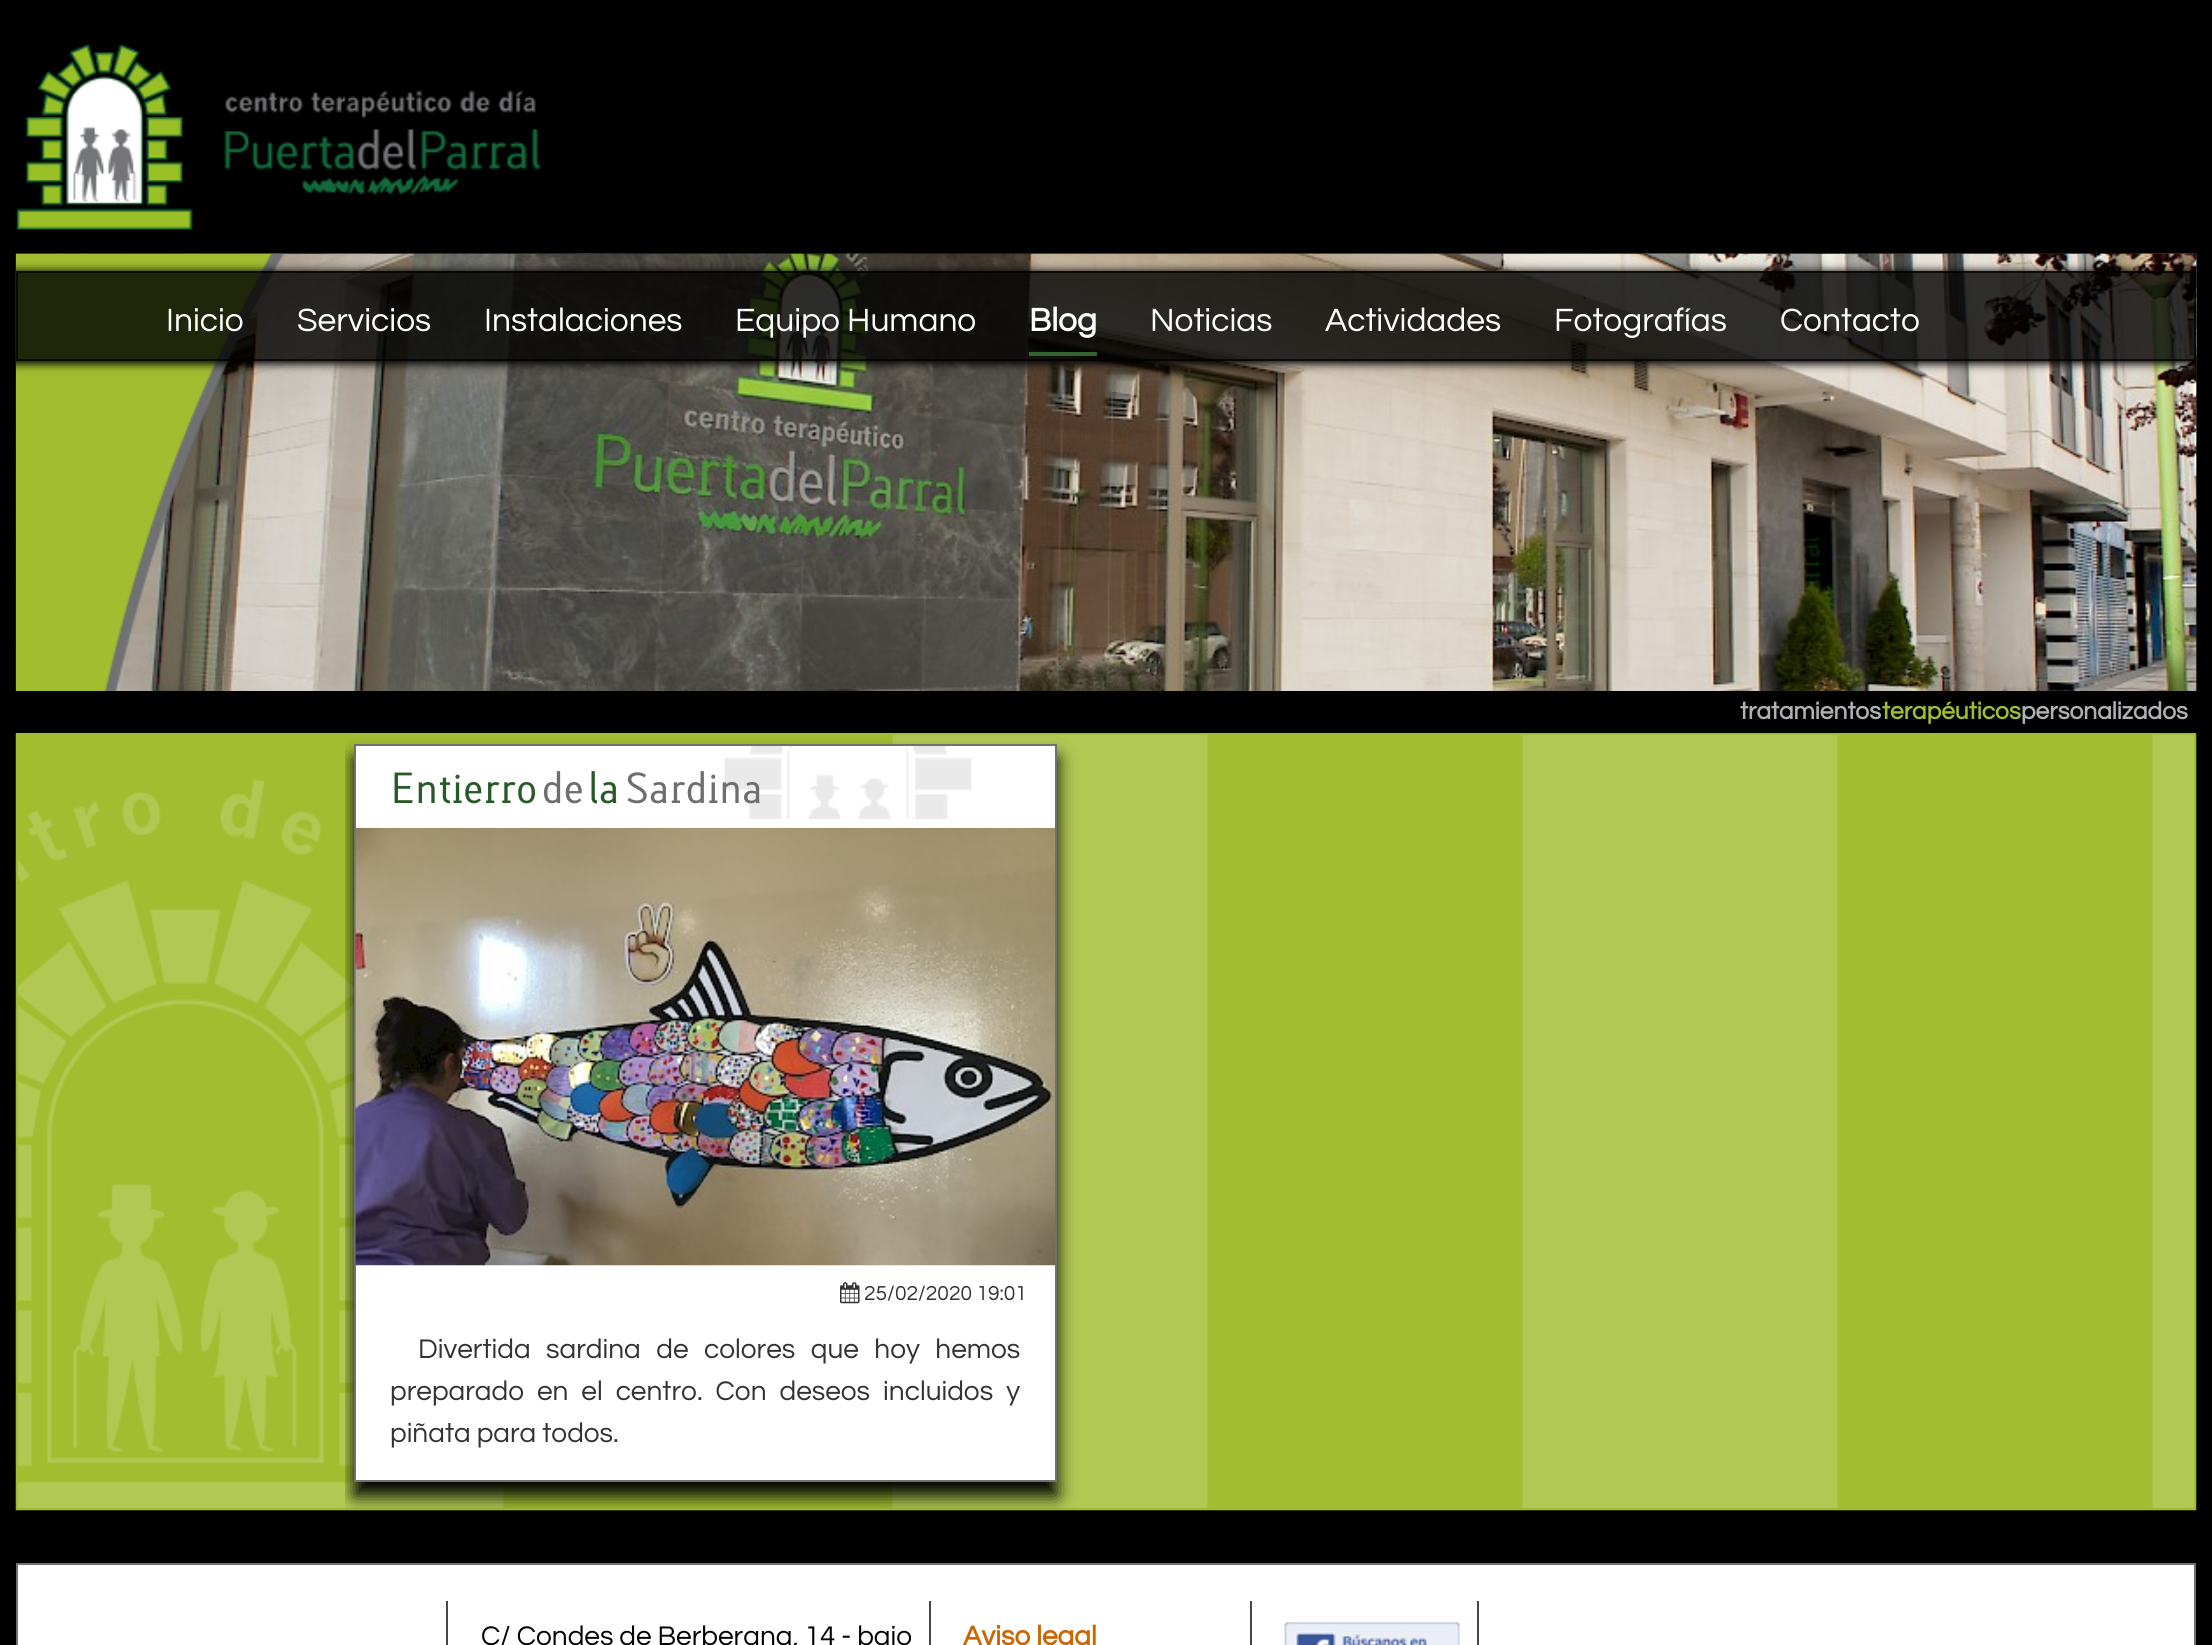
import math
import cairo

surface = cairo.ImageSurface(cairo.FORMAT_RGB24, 2212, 1645)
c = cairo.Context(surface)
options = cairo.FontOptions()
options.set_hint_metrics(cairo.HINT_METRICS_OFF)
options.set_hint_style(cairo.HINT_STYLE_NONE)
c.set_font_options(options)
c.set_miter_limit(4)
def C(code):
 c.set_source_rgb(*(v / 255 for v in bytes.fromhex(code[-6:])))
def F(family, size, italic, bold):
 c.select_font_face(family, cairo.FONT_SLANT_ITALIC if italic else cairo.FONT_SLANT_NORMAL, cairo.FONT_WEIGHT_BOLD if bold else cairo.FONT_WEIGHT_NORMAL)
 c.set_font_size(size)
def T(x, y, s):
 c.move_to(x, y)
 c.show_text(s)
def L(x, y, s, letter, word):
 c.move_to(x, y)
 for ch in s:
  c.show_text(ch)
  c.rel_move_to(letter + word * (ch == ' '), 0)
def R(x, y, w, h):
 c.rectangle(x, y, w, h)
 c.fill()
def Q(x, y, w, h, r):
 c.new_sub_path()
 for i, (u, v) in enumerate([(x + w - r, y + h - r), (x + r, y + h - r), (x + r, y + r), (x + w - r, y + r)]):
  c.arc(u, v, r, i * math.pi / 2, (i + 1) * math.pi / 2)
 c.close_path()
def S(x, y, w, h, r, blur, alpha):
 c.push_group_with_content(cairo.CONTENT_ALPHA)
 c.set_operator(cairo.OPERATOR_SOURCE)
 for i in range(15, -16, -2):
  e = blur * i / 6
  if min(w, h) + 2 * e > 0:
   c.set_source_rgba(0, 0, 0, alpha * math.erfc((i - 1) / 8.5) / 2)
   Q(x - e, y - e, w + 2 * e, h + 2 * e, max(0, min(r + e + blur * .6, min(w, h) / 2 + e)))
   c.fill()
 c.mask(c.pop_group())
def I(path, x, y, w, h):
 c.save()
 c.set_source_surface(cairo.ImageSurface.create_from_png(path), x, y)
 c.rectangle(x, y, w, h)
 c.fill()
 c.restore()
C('000000')
c.paint()
I('1.png',15,43,526,187)
I('2.png',15,253,2182,439)
I('3.png',15,253,2182,439)
I('4.png',15,253,269,438)
c.save()
c.rectangle(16,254,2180,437)
c.clip()
c.set_fill_rule(cairo.FILL_RULE_EVEN_ODD)
c.new_path()
c.move_to(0,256)
c.line_to(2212,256)
c.line_to(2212,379)
c.line_to(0,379)
c.close_path()
c.move_to(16,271)
c.line_to(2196,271)
c.line_to(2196,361)
c.line_to(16,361)
c.close_path()
c.clip()
S(14,271,2184,93,0,4.5,1)
c.restore()
c.set_source_rgba(0,0,0,0.8)
R(16,271,2180,90)
c.rectangle(17,272,2178,88)
c.set_source_rgba(0,0,0,0.7)
c.stroke()
F('Questrial',33.5,0,0)
C('ffffff')
T(166,331,'Inicio')
T(297,331,'Servicios')
T(484,331,'Instalaciones')
T(735,331,'Equipo Humano')
C('326432')
R(1029,352,68,4)
F('Questrial',33.5,0,1)
C('ffffff')
T(1029,331,'Blog')
F('Questrial',33.5,0,0)
T(1150,331,'Noticias')
T(1325,331,'Actividades')
T(1554,331,'Fotografías')
T(1780,331,'Contacto')
C('000000')
R(16,691,2180,1)
F('Questrial',24.5,0,1)
C('b0b1b3')
T(1740,719,'tratamientos')
C('a2bd30')
T(1882,719,'terapéuticos')
C('b0b1b3')
T(2021,719,'personalizados')
I('5.png',15,733,2182,778)
c.rectangle(17,734,2178,775)
C('a0be32')
c.stroke()
c.save()
c.rectangle(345,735,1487,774)
c.clip()
C('000000')
S(354,758,703,738,0,9,1)
c.restore()
C('ffffff')
c.rectangle(355,745,701,736)
c.fill_preserve()
C('717171')
c.stroke()
I('6.png',724,746,248,73)
F('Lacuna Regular',39,0,0)
C('285a28')
T(390,803,'Entierro')
C('6e6e6e')
T(542,803,'de')
C('285a28')
T(588,803,'la')
C('6e6e6e')
T(625,803,'Sardina')
I('7.png',355,827,700,439)
I('8.png',840,1282,20,22)
F('Questrial',21,0,0)
C('333333')
T(864,1300,'25/02/2020 19:01')
F('Questrial',28,0,0)
L(418,1358,'Divertida sardina de colores que hoy hemos',0,9.5)
L(390,1400,'preparado en el centro. Con deseos incluidos y',0,7)
T(390,1442,'piñata para todos.')
C('ffffff')
c.rectangle(17,1564,2178,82)
c.fill_preserve()
C('707172')
c.stroke()
C('47484a')
R(446,1601,2,44)
R(929,1601,2,44)
C('000000')
T(481,1645,'C/ Condes de Berberana, 14 - bajo')
C('47484a')
R(1250,1601,2,44)
F('Questrial',28,0,1)
C('cc6600')
T(963,1645,'Aviso legal')
C('47484a')
R(1477,1601,2,44)
I('9.png',1284,1622,176,23)
surface.write_to_png('o.png')
